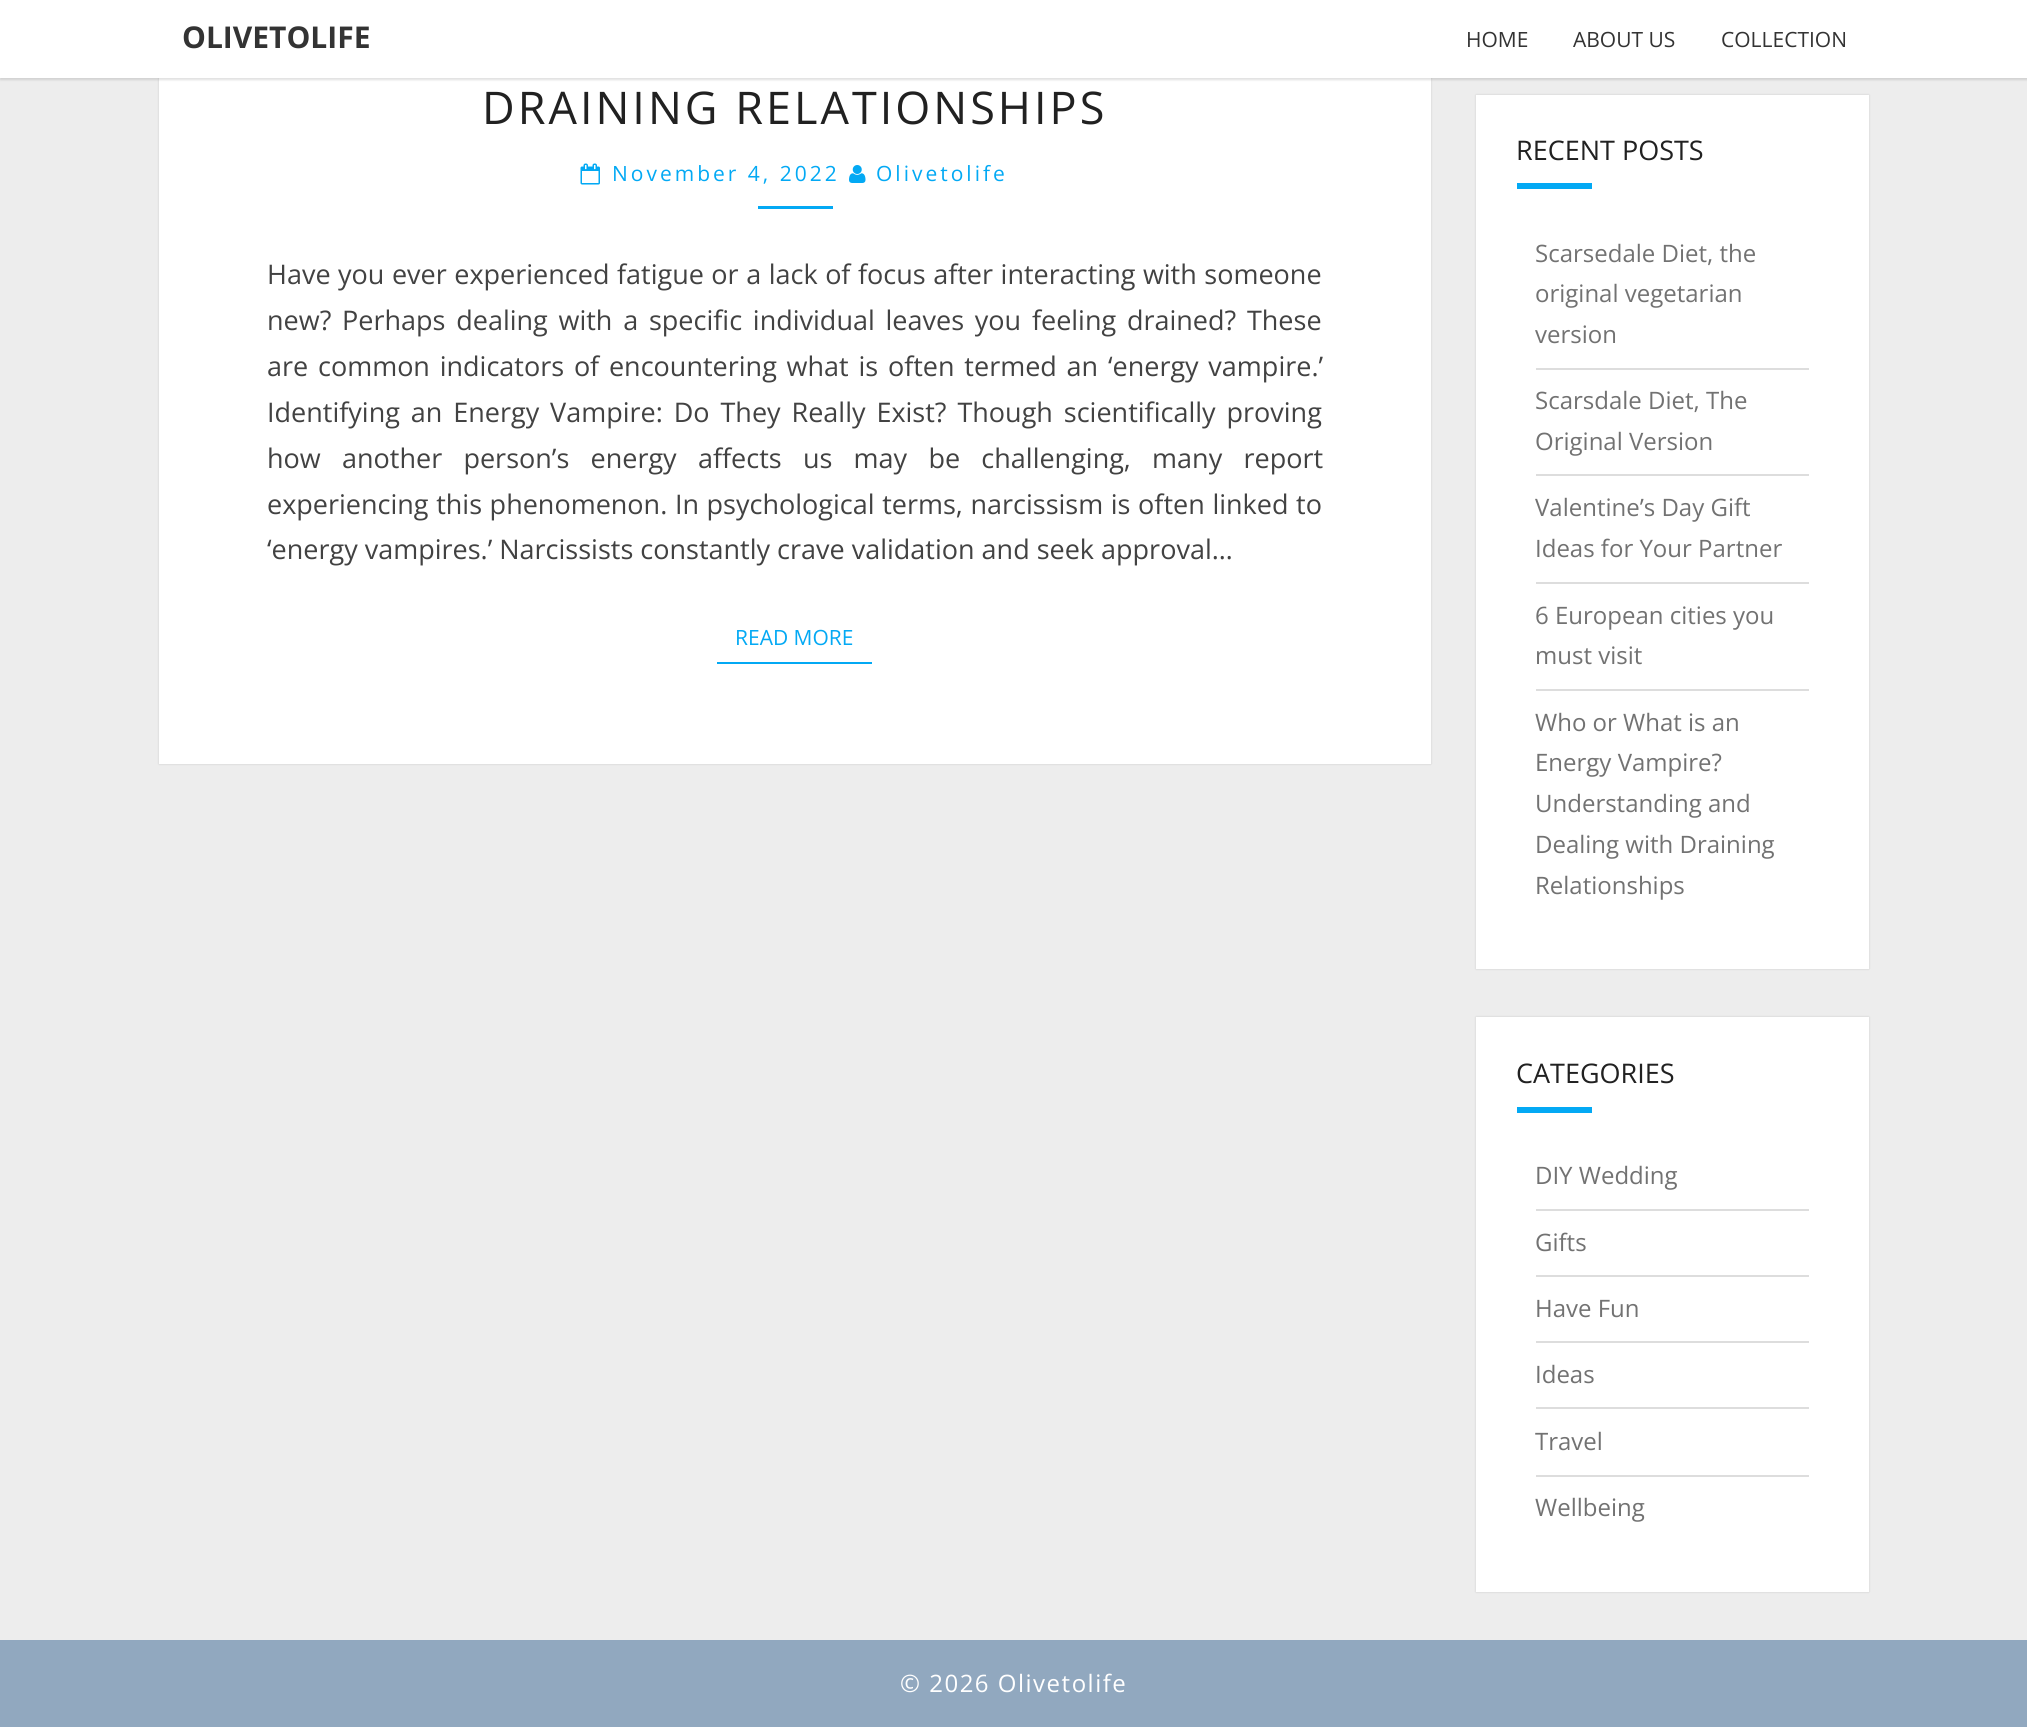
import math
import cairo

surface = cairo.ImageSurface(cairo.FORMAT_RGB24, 2027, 1727)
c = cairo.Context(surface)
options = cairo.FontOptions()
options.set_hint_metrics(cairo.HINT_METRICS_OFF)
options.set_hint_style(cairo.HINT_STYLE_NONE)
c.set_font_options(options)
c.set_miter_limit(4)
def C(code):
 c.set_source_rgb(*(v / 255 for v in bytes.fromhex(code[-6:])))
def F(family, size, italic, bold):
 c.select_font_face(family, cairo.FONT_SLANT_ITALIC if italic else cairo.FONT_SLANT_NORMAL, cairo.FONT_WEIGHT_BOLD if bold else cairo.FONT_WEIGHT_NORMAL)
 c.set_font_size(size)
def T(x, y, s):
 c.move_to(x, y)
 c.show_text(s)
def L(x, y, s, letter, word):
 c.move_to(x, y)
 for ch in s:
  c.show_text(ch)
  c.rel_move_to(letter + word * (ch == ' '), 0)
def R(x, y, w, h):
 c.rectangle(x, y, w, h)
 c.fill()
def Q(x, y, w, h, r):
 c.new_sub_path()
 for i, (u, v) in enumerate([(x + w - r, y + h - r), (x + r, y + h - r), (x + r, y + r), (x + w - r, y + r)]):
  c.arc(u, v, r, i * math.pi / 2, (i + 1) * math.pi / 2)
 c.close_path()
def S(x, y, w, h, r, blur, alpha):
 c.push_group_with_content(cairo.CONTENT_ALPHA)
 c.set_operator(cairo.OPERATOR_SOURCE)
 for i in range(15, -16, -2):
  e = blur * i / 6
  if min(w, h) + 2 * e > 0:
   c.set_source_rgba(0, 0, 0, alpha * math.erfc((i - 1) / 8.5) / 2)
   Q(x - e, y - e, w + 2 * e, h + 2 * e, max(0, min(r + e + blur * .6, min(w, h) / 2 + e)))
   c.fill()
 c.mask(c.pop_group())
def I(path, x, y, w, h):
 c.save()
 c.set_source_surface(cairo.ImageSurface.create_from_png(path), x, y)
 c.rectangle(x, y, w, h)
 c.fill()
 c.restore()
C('ededed')
c.paint()
C('000000')
S(159,-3,1272,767,0,1,.15)
C('ffffff')
R(159,78,1272,686)
C('646464')
S(0,2,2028,78,0,1,.2)
C('ffffff')
R(0,0,2027,78)
F('Open Sans',30,0,1)
C('333333')
T(182,48,'OLIVETOLIFE')
F('Open Sans',21,0,0)
T(1466,47,'HOME')
T(1573,47,'ABOUT US')
T(1721,47,'COLLECTION')
F('Open Sans',45,0,0)
C('212121')
L(482,124,'DRAINING RELATIONSHIPS',3,0)
I('1.png',580,163,20,22)
F('Open Sans',21,0,0)
C('03a9f4')
L(612,181,'November 4, 2022',3,0)
I('2.png',849,165,17,18)
L(876,181,'Olivetolife',3,0)
R(758,206,75,3)
F('Open Sans',27,0,0)
C('424242')
L(267,284,'Have you ever experienced fatigue or a lack of focus after interacting with someone',0,.5)
L(267,330,'new? Perhaps dealing with a specific individual leaves you feeling drained? These',0,3.75)
L(267,376,'are common indicators of encountering what is often termed an ‘energy vampire.’',0,2.75)
L(267,422,'Identifying an Energy Vampire: Do They Really Exist? Though scientifically proving',0,3.9)
L(267,468,'how another person’s energy affects us may be challenging, many report',0,14.25)
L(267,514,'experiencing this phenomenon. In psychological terms, narcissism is often linked to',0,.6)
T(267,559,'‘energy vampires.’ Narcissists constantly crave validation and seek approval…')
C('03a9f4')
R(717,662,155,2)
F('Open Sans',21,0,0)
T(735,645,'READ MORE')
C('000000')
S(1476,95,393,874,0,1,.15)
C('ffffff')
R(1476,95,393,874)
F('Open Sans',27,0,0)
C('212121')
T(1516,160,'RECENT POSTS')
C('03a9f4')
R(1517,183,75,6)
C('dddddd')
R(1536,368,273,2)
F('Open Sans',24,0,0)
C('727272')
T(1535,262,'Scarsedale Diet, the')
T(1535,302,'original vegetarian')
T(1535,343,'version')
C('dddddd')
R(1536,474,273,2)
C('727272')
T(1535,409,'Scarsdale Diet, The')
T(1535,450,'Original Version')
C('dddddd')
R(1536,582,273,2)
C('727272')
T(1535,516,'Valentine’s Day Gift')
T(1535,557,'Ideas for Your Partner')
C('dddddd')
R(1536,689,273,2)
C('727272')
T(1535,624,'6 European cities you')
T(1535,664,'must visit')
T(1535,731,'Who or What is an')
T(1535,771,'Energy Vampire?')
T(1535,812,'Understanding and')
T(1535,853,'Dealing with Draining')
T(1535,894,'Relationships')
C('000000')
S(1476,1017,393,575,0,1,.15)
C('ffffff')
R(1476,1017,393,575)
F('Open Sans',27,0,0)
C('212121')
T(1516,1083,'CATEGORIES')
C('03a9f4')
R(1517,1107,75,6)
C('dddddd')
R(1536,1209,273,2)
F('Open Sans',24,0,0)
C('727272')
T(1535,1184,'DIY Wedding')
C('dddddd')
R(1536,1275,273,2)
C('727272')
T(1535,1251,'Gifts')
C('dddddd')
R(1536,1341,273,2)
C('727272')
T(1535,1317,'Have Fun')
C('dddddd')
R(1536,1407,273,2)
C('727272')
T(1535,1383,'Ideas')
C('dddddd')
R(1536,1475,273,2)
C('727272')
T(1535,1450,'Travel')
T(1535,1516,'Wellbeing')
C('91a8bf')
R(0,1640,2027,87)
C('ffffff')
L(900,1692,'© 2026 Olivetolife',1.5,0)
surface.write_to_png('o.png')
